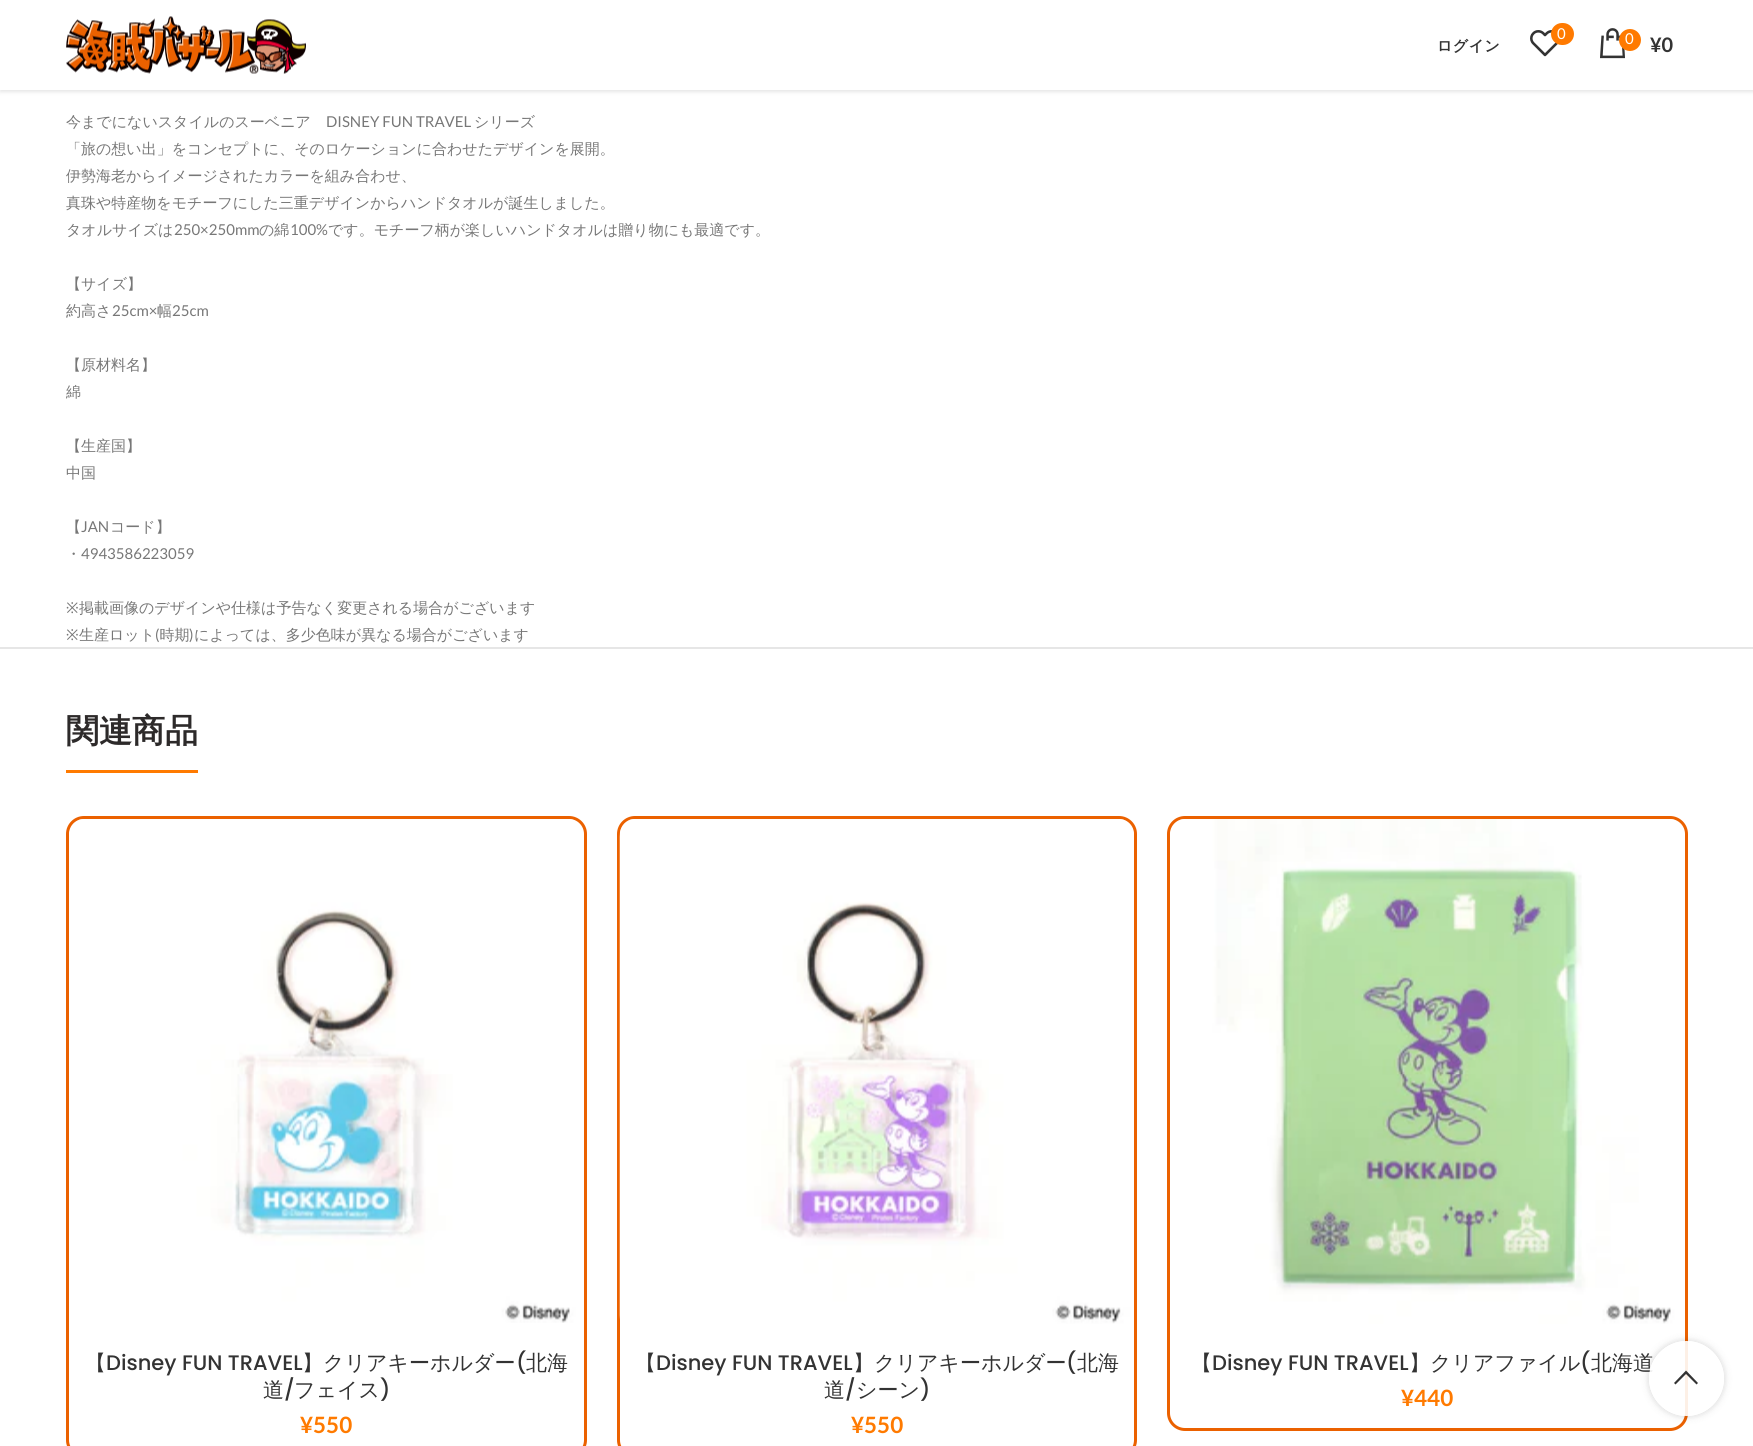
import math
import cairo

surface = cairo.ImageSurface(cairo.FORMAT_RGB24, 1753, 1446)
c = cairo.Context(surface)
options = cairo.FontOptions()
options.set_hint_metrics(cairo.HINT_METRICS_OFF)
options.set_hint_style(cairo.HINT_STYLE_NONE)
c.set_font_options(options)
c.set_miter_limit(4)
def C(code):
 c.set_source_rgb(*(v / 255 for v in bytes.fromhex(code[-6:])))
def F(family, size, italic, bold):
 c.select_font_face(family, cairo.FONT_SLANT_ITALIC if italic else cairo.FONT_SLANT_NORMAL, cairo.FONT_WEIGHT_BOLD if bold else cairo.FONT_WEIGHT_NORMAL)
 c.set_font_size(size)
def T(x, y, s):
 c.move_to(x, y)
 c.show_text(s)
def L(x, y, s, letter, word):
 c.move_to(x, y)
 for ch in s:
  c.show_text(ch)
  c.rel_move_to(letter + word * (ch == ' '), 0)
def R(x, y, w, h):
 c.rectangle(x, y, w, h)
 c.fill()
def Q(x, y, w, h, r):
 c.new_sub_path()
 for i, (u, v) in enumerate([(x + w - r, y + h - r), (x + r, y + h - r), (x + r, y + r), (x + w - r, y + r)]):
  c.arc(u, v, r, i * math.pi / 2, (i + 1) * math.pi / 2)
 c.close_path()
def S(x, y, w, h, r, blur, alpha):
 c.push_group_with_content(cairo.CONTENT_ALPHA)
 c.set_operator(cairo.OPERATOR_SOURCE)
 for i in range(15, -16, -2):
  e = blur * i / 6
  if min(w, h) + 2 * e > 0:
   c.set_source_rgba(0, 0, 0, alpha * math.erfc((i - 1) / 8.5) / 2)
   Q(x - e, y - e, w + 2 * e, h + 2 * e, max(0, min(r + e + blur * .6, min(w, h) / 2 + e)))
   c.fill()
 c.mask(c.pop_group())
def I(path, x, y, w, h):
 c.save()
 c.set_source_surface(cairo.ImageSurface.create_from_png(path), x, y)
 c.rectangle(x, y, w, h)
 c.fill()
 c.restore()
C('ffffff')
c.paint()
C('000000')
S(0,2,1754,90,0,2,.1)
C('ffffff')
R(0,0,1753,90)
I('1.png',66,16,240,58)
F('WenQuanYi Zen Hei',15,0,1)
C('333333')
L(1437,51,'ログイン',.5,0)
I('2.png',1530,30,28,27)
C('ff7a00')
Q(1551,23,23,22,11)
c.fill()
F('Lato',15,0,0)
C('ffffff')
T(1557,39,'0')
I('3.png',1600,28,25,31)
C('ff7a00')
c.arc(1630,40,11,0,2 * math.pi)
c.fill()
C('ffffff')
T(1625,44,'0')
F('Lato',20,0,1)
C('333333')
T(1650,52,'¥0')
C('e6e6e6')
R(0,647,1753,2)
F('WenQuanYi Zen Hei Medium',15,0,0)
C('777777')
T(66,127,'今までにないスタイルのスーベニア')
F('Lato',15,0,0)
T(326,127,'DISNEY FUN TRAVEL')
F('WenQuanYi Zen Hei Medium',15,0,0)
T(474,127,'シリーズ')
T(66,154,'「旅の想い出」をコンセプトに、そのロケーションに合わせたデザインを展開。')
T(66,181,'伊勢海老からイメージされたカラーを組み合わせ、')
T(66,208,'真珠や特産物をモチーフにした三重デザインからハンドタオルが誕生しました。')
T(66,235,'タオルサイズは')
F('Lato',15,0,0)
T(174,235,'250×250mm')
F('WenQuanYi Zen Hei Medium',15,0,0)
T(259,235,'の綿')
F('Lato',15,0,0)
T(290,235,'100%')
F('WenQuanYi Zen Hei Medium',15,0,0)
T(328,235,'です。モチーフ柄が楽しいハンドタオルは贈り物にも最適です。')
T(66,289,'【サイズ】')
T(66,316,'約高さ')
F('Lato',15,0,0)
T(112,316,'25cm×')
F('WenQuanYi Zen Hei Medium',15,0,0)
T(157,316,'幅')
F('Lato',15,0,0)
T(172,316,'25cm')
F('WenQuanYi Zen Hei Medium',15,0,0)
T(66,370,'【原材料名】')
T(66,397,'綿')
T(66,451,'【生産国】')
T(66,478,'中国')
T(66,532,'【')
F('Lato',15,0,0)
T(81,532,'JAN')
F('WenQuanYi Zen Hei Medium',15,0,0)
T(110,532,'コード】')
T(66,559,'・')
F('Lato',15,0,0)
T(81,559,'4943586223059')
F('Noto Sans',15,0,0)
T(66,613,'※')
F('WenQuanYi Zen Hei Medium',15,0,0)
T(79,613,'掲載画像のデザインや仕様は予告なく変更される場合がございます')
T(79,640,'生産ロット 時期 によっては、多少色味が異なる場合がございます')
F('Noto Sans',15,0,0)
T(66,640,'※')
F('Lato',15,0,0)
T(155,640,'(')
T(189,640,')')
F('WenQuanYi Zen Hei',33,0,1)
C('2d2a2a')
T(66,742,'関連商品')
C('ff7a00')
R(66,770,132,3)
Q(67.5,817.5,518,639,16.5)
C('eb6100')
c.set_line_width(3)
c.stroke()
I('4.png',69,819,507,504)
F('WenQuanYi Zen Hei Medium',21,0,0)
C('333333')
T(85,1370,'【')
F('Poppins Medium',21,0,0)
T(106,1370,'Disney FUN TRAVEL')
F('WenQuanYi Zen Hei Medium',21,0,0)
T(302,1370,'】クリアキーホルダー')
F('Poppins Medium',21,0,0)
T(516,1370,'(')
F('WenQuanYi Zen Hei Medium',21,0,0)
T(526,1370,'北海')
T(263,1397,'道')
F('Poppins Medium',21,0,0)
T(284,1397,'/')
F('WenQuanYi Zen Hei Medium',21,0,0)
T(294,1397,'フェイス')
F('Poppins Medium',21,0,0)
T(380,1397,')')
F('Lato',22.5,0,1)
C('ff7a00')
T(300,1433,'¥550')
Q(618.5,817.5,517,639,16.5)
C('eb6100')
c.stroke()
I('5.png',619,819,515,505)
F('WenQuanYi Zen Hei Medium',21,0,0)
C('333333')
T(635,1370,'【')
F('Poppins Medium',21,0,0)
T(656,1370,'Disney FUN TRAVEL')
F('WenQuanYi Zen Hei Medium',21,0,0)
T(853,1370,'】クリアキーホルダー')
F('Poppins Medium',21,0,0)
T(1066,1370,'(')
F('WenQuanYi Zen Hei Medium',21,0,0)
T(1077,1370,'北海')
T(824,1397,'道')
F('Poppins Medium',21,0,0)
T(845,1397,'/')
F('WenQuanYi Zen Hei Medium',21,0,0)
T(856,1397,'シーン')
F('Poppins Medium',21,0,0)
T(920,1397,')')
F('Lato',22.5,0,1)
C('ff7a00')
T(851,1433,'¥550')
Q(1168.5,817.5,518,612,16.5)
C('eb6100')
c.stroke()
I('6.png',1170,819,507,505)
F('WenQuanYi Zen Hei Medium',21,0,0)
C('333333')
T(1191,1370,'【')
F('Poppins Medium',21,0,0)
T(1212,1370,'Disney FUN TRAVEL')
F('WenQuanYi Zen Hei Medium',21,0,0)
T(1409,1370,'】クリアファイル')
F('Poppins Medium',21,0,0)
T(1580,1370,'(')
F('WenQuanYi Zen Hei Medium',21,0,0)
T(1591,1370,'北海道')
F('Lato',22.5,0,1)
C('ff7a00')
T(1401,1406,'¥440')
c.save()
c.set_fill_rule(cairo.FILL_RULE_EVEN_ODD)
c.new_path()
c.move_to(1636,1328)
c.line_to(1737,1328)
c.line_to(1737,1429)
c.line_to(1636,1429)
c.close_path()
c.move_to(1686.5,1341)
c.curve_to(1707,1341,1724,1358,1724,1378.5)
c.curve_to(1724,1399,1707,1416,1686.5,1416)
c.curve_to(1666,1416,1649,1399,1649,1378.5)
c.curve_to(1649,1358,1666,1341,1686.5,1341)
c.close_path()
c.clip()
C('000000')
S(1649,1341,75,75,37.5,4,.17)
c.restore()
c.set_source_rgba(1,1,1,0.9)
c.arc(1686.5,1378.5,37.5,0,2 * math.pi)
c.fill()
C('333333')
c.new_path()
c.move_to(1686,1370.5)
c.line_to(1698,1383)
c.line_to(1696.5,1384.5)
c.line_to(1686,1374)
c.line_to(1675.5,1384.5)
c.line_to(1674,1383)
c.close_path()
c.fill()
surface.write_to_png('o.png')
